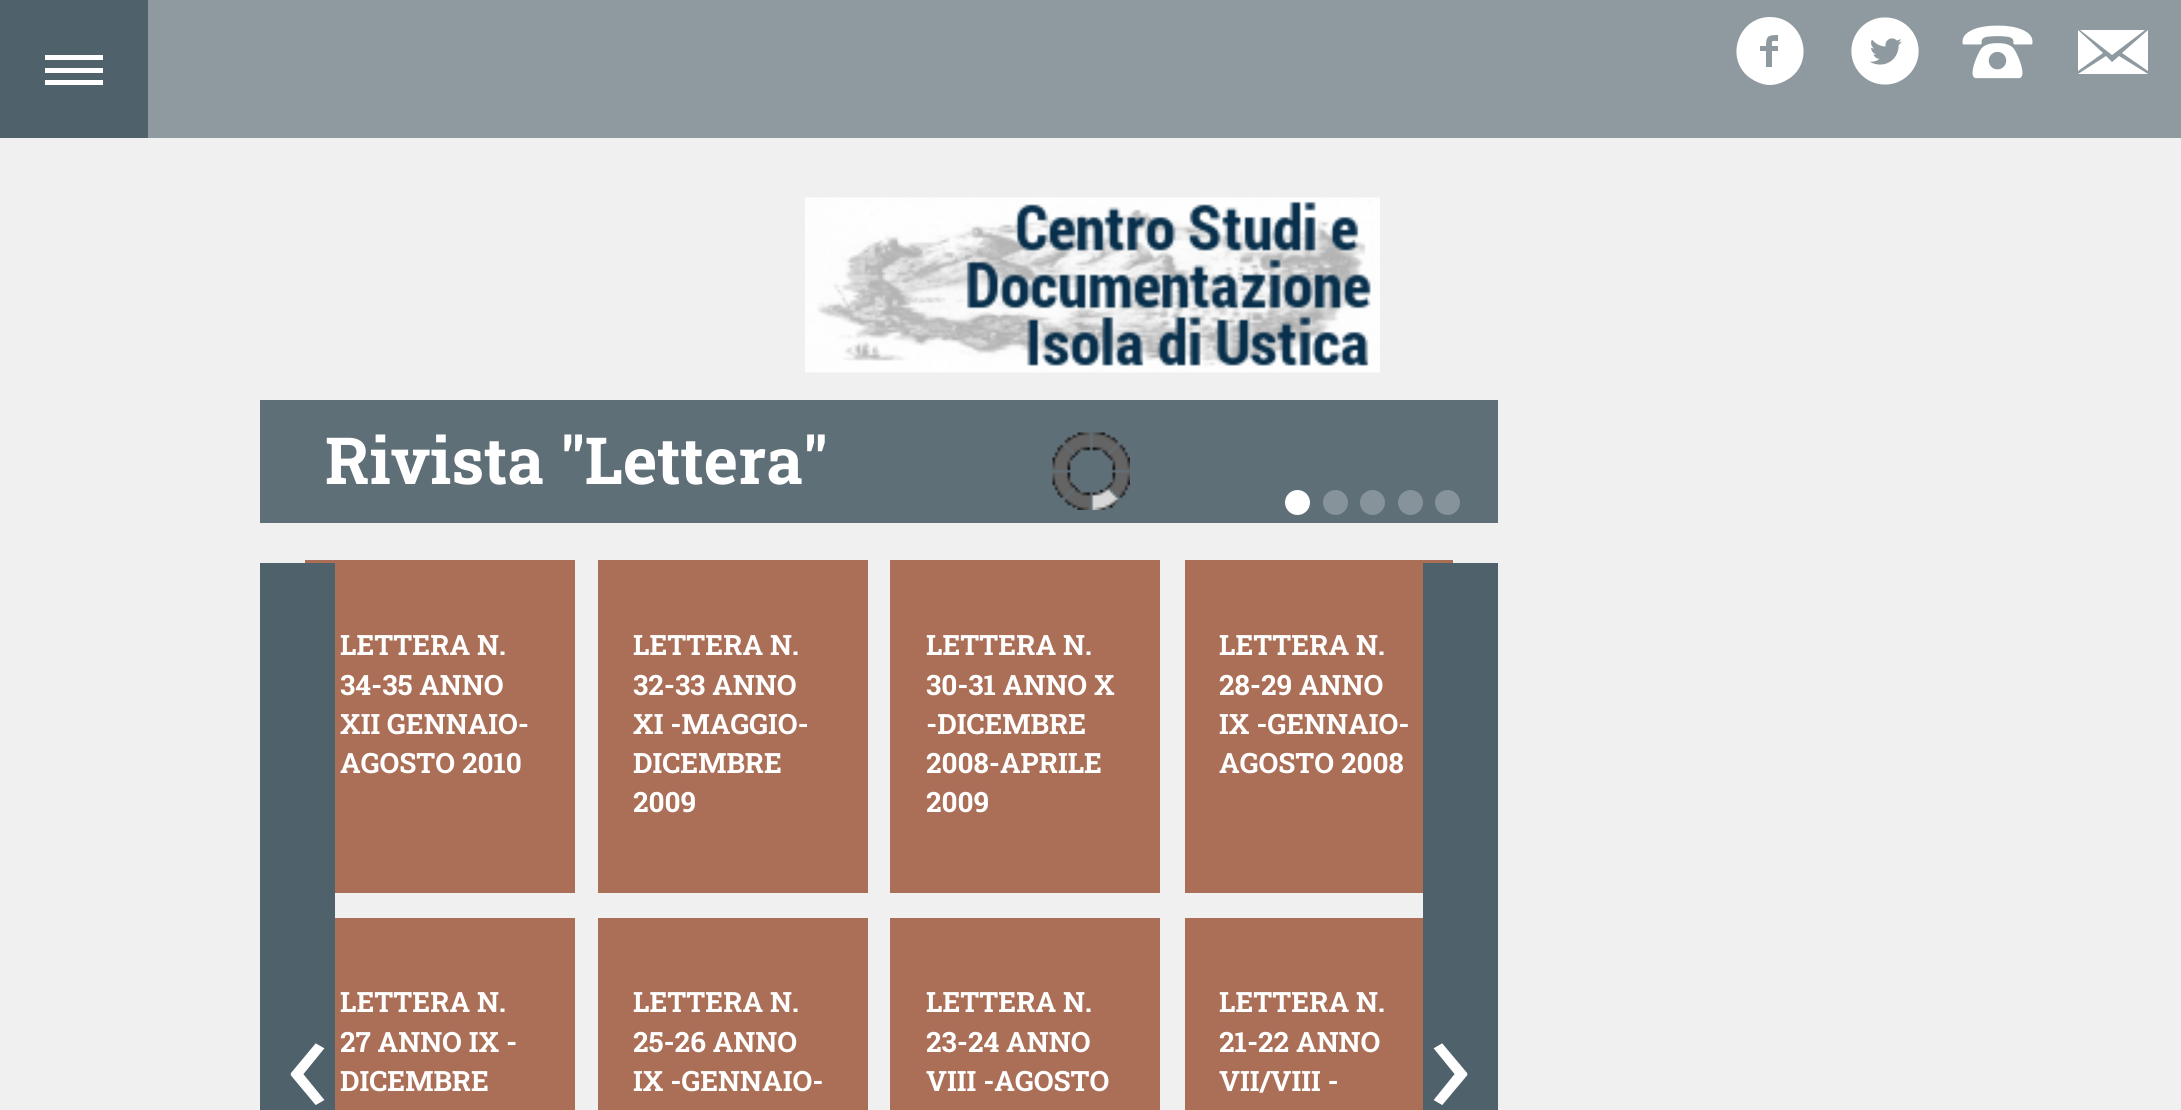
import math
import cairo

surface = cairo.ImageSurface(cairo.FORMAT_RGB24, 2181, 1110)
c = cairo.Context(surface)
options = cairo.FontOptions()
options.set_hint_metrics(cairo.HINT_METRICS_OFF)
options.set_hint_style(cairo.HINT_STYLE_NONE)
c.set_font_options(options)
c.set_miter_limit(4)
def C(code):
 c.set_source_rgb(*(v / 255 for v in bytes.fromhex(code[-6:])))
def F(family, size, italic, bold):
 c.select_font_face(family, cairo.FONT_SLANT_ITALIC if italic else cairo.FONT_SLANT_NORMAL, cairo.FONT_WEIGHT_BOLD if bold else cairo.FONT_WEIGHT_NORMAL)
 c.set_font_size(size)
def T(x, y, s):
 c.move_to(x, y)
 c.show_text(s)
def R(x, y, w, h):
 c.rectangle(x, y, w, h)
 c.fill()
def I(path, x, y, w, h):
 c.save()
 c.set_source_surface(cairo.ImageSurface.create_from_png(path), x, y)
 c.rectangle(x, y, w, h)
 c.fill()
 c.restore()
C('f0f0f0')
c.paint()
C('5f6f78')
R(260,400,1238,123)
I('1.png',1052,432,78,78)
C('8f9aa0')
R(148,0,2033,138)
C('4f616b')
R(0,0,148,138)
C('ffffff')
R(45,55,58,5)
R(45,68,58,5)
R(45,80,58,5)
c.new_path()
c.move_to(1770,17)
c.curve_to(1738,17,1724,59,1750,78)
c.curve_to(1756,82,1763,85,1770,85)
c.curve_to(1777,85,1784,82,1790,78)
c.curve_to(1816,59,1802,17,1770,17)
c.close_path()
c.move_to(1778,41)
c.curve_to(1771,41,1772,40,1772,46)
c.line_to(1778,46)
c.line_to(1778,51)
c.line_to(1772,51)
c.line_to(1772,67)
c.line_to(1766,67)
c.line_to(1766,51)
c.line_to(1760,51)
c.line_to(1760,46)
c.line_to(1766,46)
c.curve_to(1766,36,1768,35,1778,35)
c.close_path()
c.fill()
I('2.png',1851,17,68,68)
I('3.png',1962,25,71,54)
c.new_path()
c.move_to(2122,53)
c.line_to(2148,30)
c.line_to(2148,71)
c.close_path()
c.move_to(2078,30)
c.line_to(2103,53)
c.line_to(2078,71)
c.close_path()
c.move_to(2112,62)
c.line_to(2119,56)
c.line_to(2148,74)
c.line_to(2078,74)
c.line_to(2106,56)
c.close_path()
c.move_to(2145,30)
c.line_to(2112,55)
c.line_to(2080,30)
c.close_path()
c.fill()
I('4.png',805,197,575,176)
F('Roboto Slab',65,0,1)
T(325,484,'Rivista "Lettera"')
c.new_path()
c.arc(1297.5,502.5,12.5,0,2 * math.pi)
c.fill()
C('87939a')
c.arc(1335.5,502.5,12.5,0,2 * math.pi)
c.fill()
c.arc(1372.5,502.5,12.5,0,2 * math.pi)
c.fill()
c.arc(1410.5,502.5,12.5,0,2 * math.pi)
c.fill()
c.arc(1447.5,502.5,12.5,0,2 * math.pi)
c.fill()
C('ab6e56')
R(305,560,270,333)
C('4f616b')
R(260,563,75,547)
F('Open Sans',150,0,0)
C('ffffff')
T(285,1114,'‹')
F('Roboto Slab',28,0,1)
T(340,655,'LETTERA N.')
T(340,695,'34-35 ANNO')
T(340,734,'XII GENNAIO-')
T(340,773,'AGOSTO 2010')
C('ab6e56')
R(598,560,270,333)
C('ffffff')
T(633,655,'LETTERA N.')
T(633,695,'32-33 ANNO')
T(633,734,'XI -MAGGIO-')
T(633,773,'DICEMBRE')
T(633,812,'2009')
C('ab6e56')
R(890,560,270,333)
C('ffffff')
T(926,655,'LETTERA N.')
T(926,695,'30-31 ANNO X')
T(926,734,'-DICEMBRE')
T(926,773,'2008-APRILE')
T(926,812,'2009')
C('ab6e56')
R(1185,560,268,333)
C('ffffff')
T(1219,655,'LETTERA N.')
T(1219,695,'28-29 ANNO')
T(1219,734,'IX -GENNAIO-')
T(1219,773,'AGOSTO 2008')
C('ab6e56')
R(335,918,240,192)
C('ffffff')
T(340,1012,'LETTERA N.')
T(340,1052,'27 ANNO IX -')
T(340,1091,'DICEMBRE')
C('ab6e56')
R(598,918,270,192)
C('ffffff')
T(633,1012,'LETTERA N.')
T(633,1052,'25-26 ANNO')
T(633,1091,'IX -GENNAIO-')
C('ab6e56')
R(890,918,270,192)
C('ffffff')
T(926,1012,'LETTERA N.')
T(926,1052,'23-24 ANNO')
T(926,1091,'VIII -AGOSTO')
C('ab6e56')
R(1185,918,238,192)
C('ffffff')
T(1219,1012,'LETTERA N.')
T(1219,1052,'21-22 ANNO')
T(1219,1091,'VII/VIII -')
C('4f616b')
R(1423,563,75,547)
F('Open Sans',150,0,0)
C('ffffff')
T(1428,1114,'›')
surface.write_to_png('o.png')
